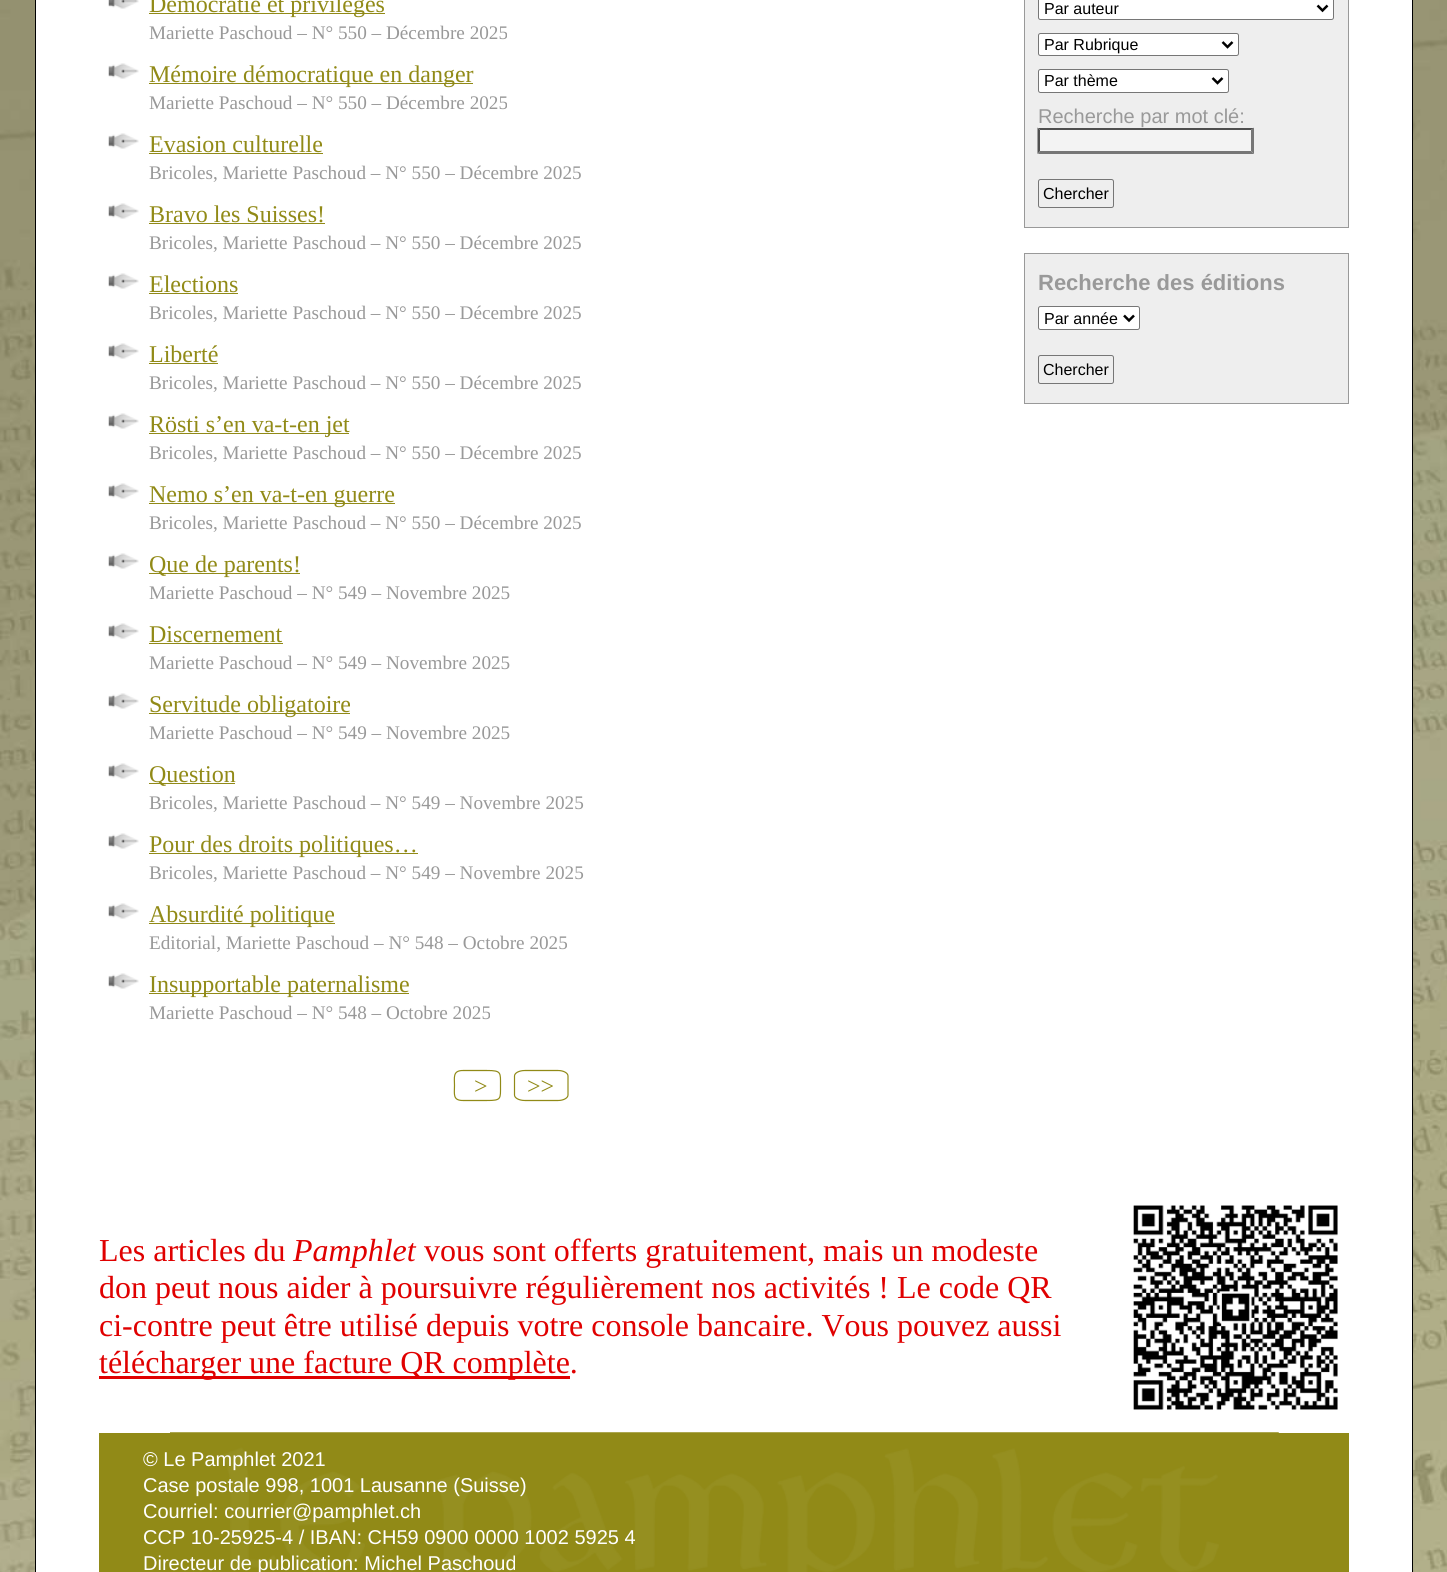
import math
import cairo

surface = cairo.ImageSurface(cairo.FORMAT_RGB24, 1447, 1572)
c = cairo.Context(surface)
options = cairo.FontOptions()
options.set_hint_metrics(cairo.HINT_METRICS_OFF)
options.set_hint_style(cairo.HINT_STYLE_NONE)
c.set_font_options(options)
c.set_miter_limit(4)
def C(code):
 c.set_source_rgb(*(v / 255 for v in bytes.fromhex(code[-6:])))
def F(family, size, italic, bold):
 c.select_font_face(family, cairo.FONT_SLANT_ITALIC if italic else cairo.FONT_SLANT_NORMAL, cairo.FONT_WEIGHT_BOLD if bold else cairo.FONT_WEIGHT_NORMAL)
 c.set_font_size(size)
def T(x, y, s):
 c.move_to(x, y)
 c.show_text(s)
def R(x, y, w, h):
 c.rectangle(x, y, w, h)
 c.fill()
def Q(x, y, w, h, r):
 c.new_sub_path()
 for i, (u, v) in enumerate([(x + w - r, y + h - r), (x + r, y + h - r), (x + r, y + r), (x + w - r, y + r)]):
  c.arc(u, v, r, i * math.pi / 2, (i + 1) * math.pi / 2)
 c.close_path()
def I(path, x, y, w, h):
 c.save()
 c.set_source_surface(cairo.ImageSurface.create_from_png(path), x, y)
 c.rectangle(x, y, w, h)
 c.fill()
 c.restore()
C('ffffff')
c.paint()
I('1.png',0,0,1447,1572)
C('ffffff')
c.rectangle(35.5,-.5,1377,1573)
c.fill_preserve()
C('000000')
c.set_line_width(1)
c.stroke()
I('2.png',108,0,31,9)
C('918a17')
R(149,13,236,1)
F('Liberation Serif',24,0,0)
T(149,12,'Démocratie et privilèges')
F('Liberation Serif',19.2,0,0)
C('999999')
T(149,39,'Mariette Paschoud – N° 550 – Décembre 2025')
I('3.png',108,63,31,16)
C('918a17')
R(149,83,324,1)
F('Liberation Serif',24,0,0)
T(149,82,'Mémoire démocratique en danger')
F('Liberation Serif',19.2,0,0)
C('999999')
T(149,109,'Mariette Paschoud – N° 550 – Décembre 2025')
I('3.png',108,133,31,16)
F('Liberation Serif',24,0,0)
C('918a17')
T(149,152,'Evasion culturelle')
R(149,153,174,1)
F('Liberation Serif',19.2,0,0)
C('999999')
T(149,179,'Bricoles, Mariette Paschoud – N° 550 – Décembre 2025')
I('3.png',108,203,31,16)
F('Liberation Serif',24,0,0)
C('918a17')
T(149,222,'Bravo les Suisses!')
R(149,223,176,1)
F('Liberation Serif',19.2,0,0)
C('999999')
T(149,249,'Bricoles, Mariette Paschoud – N° 550 – Décembre 2025')
I('3.png',108,273,31,16)
F('Liberation Serif',24,0,0)
C('918a17')
T(149,292,'Elections')
R(149,293,89,1)
F('Liberation Serif',19.2,0,0)
C('999999')
T(149,319,'Bricoles, Mariette Paschoud – N° 550 – Décembre 2025')
I('3.png',108,343,31,16)
F('Liberation Serif',24,0,0)
C('918a17')
T(149,362,'Liberté')
R(149,363,69,1)
F('Liberation Serif',19.2,0,0)
C('999999')
T(149,389,'Bricoles, Mariette Paschoud – N° 550 – Décembre 2025')
I('3.png',108,413,31,16)
C('918a17')
R(149,433,200,1)
F('Liberation Serif',24,0,0)
T(149,432,'Rösti s’en va-t-en jet')
F('Liberation Serif',19.2,0,0)
C('999999')
T(149,459,'Bricoles, Mariette Paschoud – N° 550 – Décembre 2025')
I('3.png',108,483,31,16)
C('918a17')
R(149,503,246,1)
F('Liberation Serif',24,0,0)
T(149,502,'Nemo s’en va-t-en guerre')
F('Liberation Serif',19.2,0,0)
C('999999')
T(149,529,'Bricoles, Mariette Paschoud – N° 550 – Décembre 2025')
I('3.png',108,553,31,16)
C('918a17')
R(149,573,151,1)
F('Liberation Serif',24,0,0)
T(149,572,'Que de parents!')
F('Liberation Serif',19.2,0,0)
C('999999')
T(149,599,'Mariette Paschoud – N° 549 – Novembre 2025')
I('4.png',108,623,31,16)
F('Liberation Serif',24,0,0)
C('918a17')
T(149,642,'Discernement')
R(149,643,134,1)
F('Liberation Serif',19.2,0,0)
C('999999')
T(149,669,'Mariette Paschoud – N° 549 – Novembre 2025')
I('3.png',108,693,31,16)
C('918a17')
R(149,713,201,1)
F('Liberation Serif',24,0,0)
T(149,712,'Servitude obligatoire')
F('Liberation Serif',19.2,0,0)
C('999999')
T(149,739,'Mariette Paschoud – N° 549 – Novembre 2025')
I('3.png',108,763,31,16)
C('918a17')
R(149,783,86,1)
F('Liberation Serif',24,0,0)
T(149,782,'Question')
F('Liberation Serif',19.2,0,0)
C('999999')
T(149,809,'Bricoles, Mariette Paschoud – N° 549 – Novembre 2025')
I('3.png',108,833,31,16)
C('918a17')
R(149,853,269,1)
F('Liberation Serif',24,0,0)
T(149,852,'Pour des droits politiques…')
F('Liberation Serif',19.2,0,0)
C('999999')
T(149,879,'Bricoles, Mariette Paschoud – N° 549 – Novembre 2025')
I('3.png',108,903,31,16)
C('918a17')
R(149,923,186,1)
F('Liberation Serif',24,0,0)
T(149,922,'Absurdité politique')
F('Liberation Serif',19.2,0,0)
C('999999')
T(149,949,'Editorial, Mariette Paschoud – N° 548 – Octobre 2025')
I('3.png',108,973,31,16)
C('918a17')
R(149,993,260,1)
F('Liberation Serif',24,0,0)
T(149,992,'Insupportable paternalisme')
F('Liberation Serif',19.2,0,0)
C('999999')
T(149,1019,'Mariette Paschoud – N° 548 – Octobre 2025')
c.new_path()
c.move_to(463,1070.5)
c.line_to(487,1070.5)
c.curve_to(501.5,1070.5,500.5,1072.5,500.5,1085.5)
c.curve_to(500.5,1099,501.5,1100.5,487,1100.5)
c.line_to(463,1100.5)
c.curve_to(452.5,1100.5,454.5,1094,454.5,1085.5)
c.curve_to(454.5,1077.5,452.5,1070.5,463,1070.5)
c.close_path()
C('918a17')
c.set_line_width(1.2)
c.stroke()
F('Liberation Serif',24,0,0)
T(474,1094,'>')
c.new_path()
c.move_to(525,1070.5)
c.line_to(558,1070.5)
c.curve_to(563.5,1070.5,568,1073,568,1076)
c.line_to(568,1095)
c.curve_to(568,1098,563.5,1100.5,558,1100.5)
c.line_to(525,1100.5)
c.curve_to(519,1100.5,514.5,1098,514.5,1095)
c.line_to(514.5,1076)
c.curve_to(514.5,1073,519,1070.5,525,1070.5)
c.close_path()
c.stroke()
T(527,1094,'>>')
C('eeeeee')
c.rectangle(1024.5,-.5,324,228)
c.fill_preserve()
C('999999')
c.set_line_width(1)
c.stroke()
C('ffffff')
Q(1038.5,-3.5,295,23,2)
c.fill_preserve()
C('767676')
c.stroke()
c.new_path()
c.move_to(1317.5,5.5)
c.line_to(1322.5,10.5)
c.line_to(1327.5,5.5)
C('000000')
c.set_line_width(2.5)
c.stroke()
F('Liberation Sans',16,0,0)
T(1044,14,'Par auteur')
C('ffffff')
Q(1038.5,33.5,200,22,2)
c.fill_preserve()
C('767676')
c.set_line_width(1)
c.stroke()
c.new_path()
c.move_to(1222.5,42)
c.line_to(1227.5,47)
c.line_to(1232.5,42)
C('000000')
c.set_line_width(2.5)
c.stroke()
T(1044,50,'Par Rubrique')
C('ffffff')
Q(1038.5,69.5,190,23,2)
c.fill_preserve()
C('767676')
c.set_line_width(1)
c.stroke()
c.new_path()
c.move_to(1212.5,78)
c.line_to(1217.5,83)
c.line_to(1222.5,78)
C('000000')
c.set_line_width(2.5)
c.stroke()
T(1044,86,'Par thème')
F('Liberation Sans',20,0,0)
C('999999')
T(1038,123,'Recherche par mot clé:')
C('f3f3f3')
R(1038,128,216,26)
C('4f4f4f')
c.new_path()
c.move_to(1038,128)
c.line_to(1254,128)
c.line_to(1251,130)
c.line_to(1040,130)
c.close_path()
c.fill()
C('767676')
c.new_path()
c.move_to(1254,127.5)
c.line_to(1254,154)
c.line_to(1251,151)
c.line_to(1251,130)
c.close_path()
c.fill()
c.new_path()
c.move_to(1254,154)
c.line_to(1038,154)
c.line_to(1040,151)
c.line_to(1251,151)
c.close_path()
c.fill()
C('4f4f4f')
c.new_path()
c.move_to(1037.5,154)
c.line_to(1037.5,127.5)
c.line_to(1040,130)
c.line_to(1040,151)
c.close_path()
c.fill()
Q(1038.5,179.5,75,28,2)
C('767676')
c.set_line_width(1)
c.stroke()
F('Liberation Sans',16,0,0)
C('000000')
T(1043,199,'Chercher')
C('eeeeee')
c.rectangle(1024.5,253.5,324,150)
c.fill_preserve()
C('999999')
c.stroke()
F('Liberation Sans',22,0,1)
T(1038,290,'Recherche des éditions')
C('ffffff')
Q(1038.5,306.5,101,23,2)
c.fill_preserve()
C('767676')
c.stroke()
c.new_path()
c.move_to(1124,315.5)
c.line_to(1129,320.5)
c.line_to(1134,315.5)
C('000000')
c.set_line_width(2.5)
c.stroke()
F('Liberation Sans',16,0,0)
T(1044,324,'Par année')
Q(1038.5,355.5,75,28,2)
C('767676')
c.set_line_width(1)
c.stroke()
C('000000')
T(1043,375,'Chercher')
F('Liberation Serif',32,0,0)
C('e00000')
T(99,1261,'Les articles du')
F('Liberation Serif',32,1,0)
T(293,1261,'Pamphlet')
F('Liberation Serif',32,0,0)
T(424,1261,'vous sont offerts gratuitement, mais un modeste')
I('5.png',1133,1205,205,205)
T(99,1298,'don peut nous aider à poursuivre régulièrement nos activités ! Le code QR')
T(99,1336,'ci-contre peut être utilisé depuis votre console bancaire. Vous pouvez aussi')
R(99,1376,471,3)
T(99,1373,'télécharger une facture QR complète.')
C('918a17')
R(99,1433,1250,139)
I('6.png',170,1432,1109,140)
F('Liberation Sans',20,0,0)
C('ffffff')
T(143,1466,'© Le Pamphlet 2021')
T(143,1492,'Case postale 998, 1001 Lausanne (Suisse)')
T(143,1518,'Courriel: courrier@pamphlet.ch')
T(143,1544,'CCP 10-25925-4 / IBAN: CH59 0900 0000 1002 5925 4')
T(143,1570,'Directeur de publication: Michel Paschoud')
surface.write_to_png('o.png')
